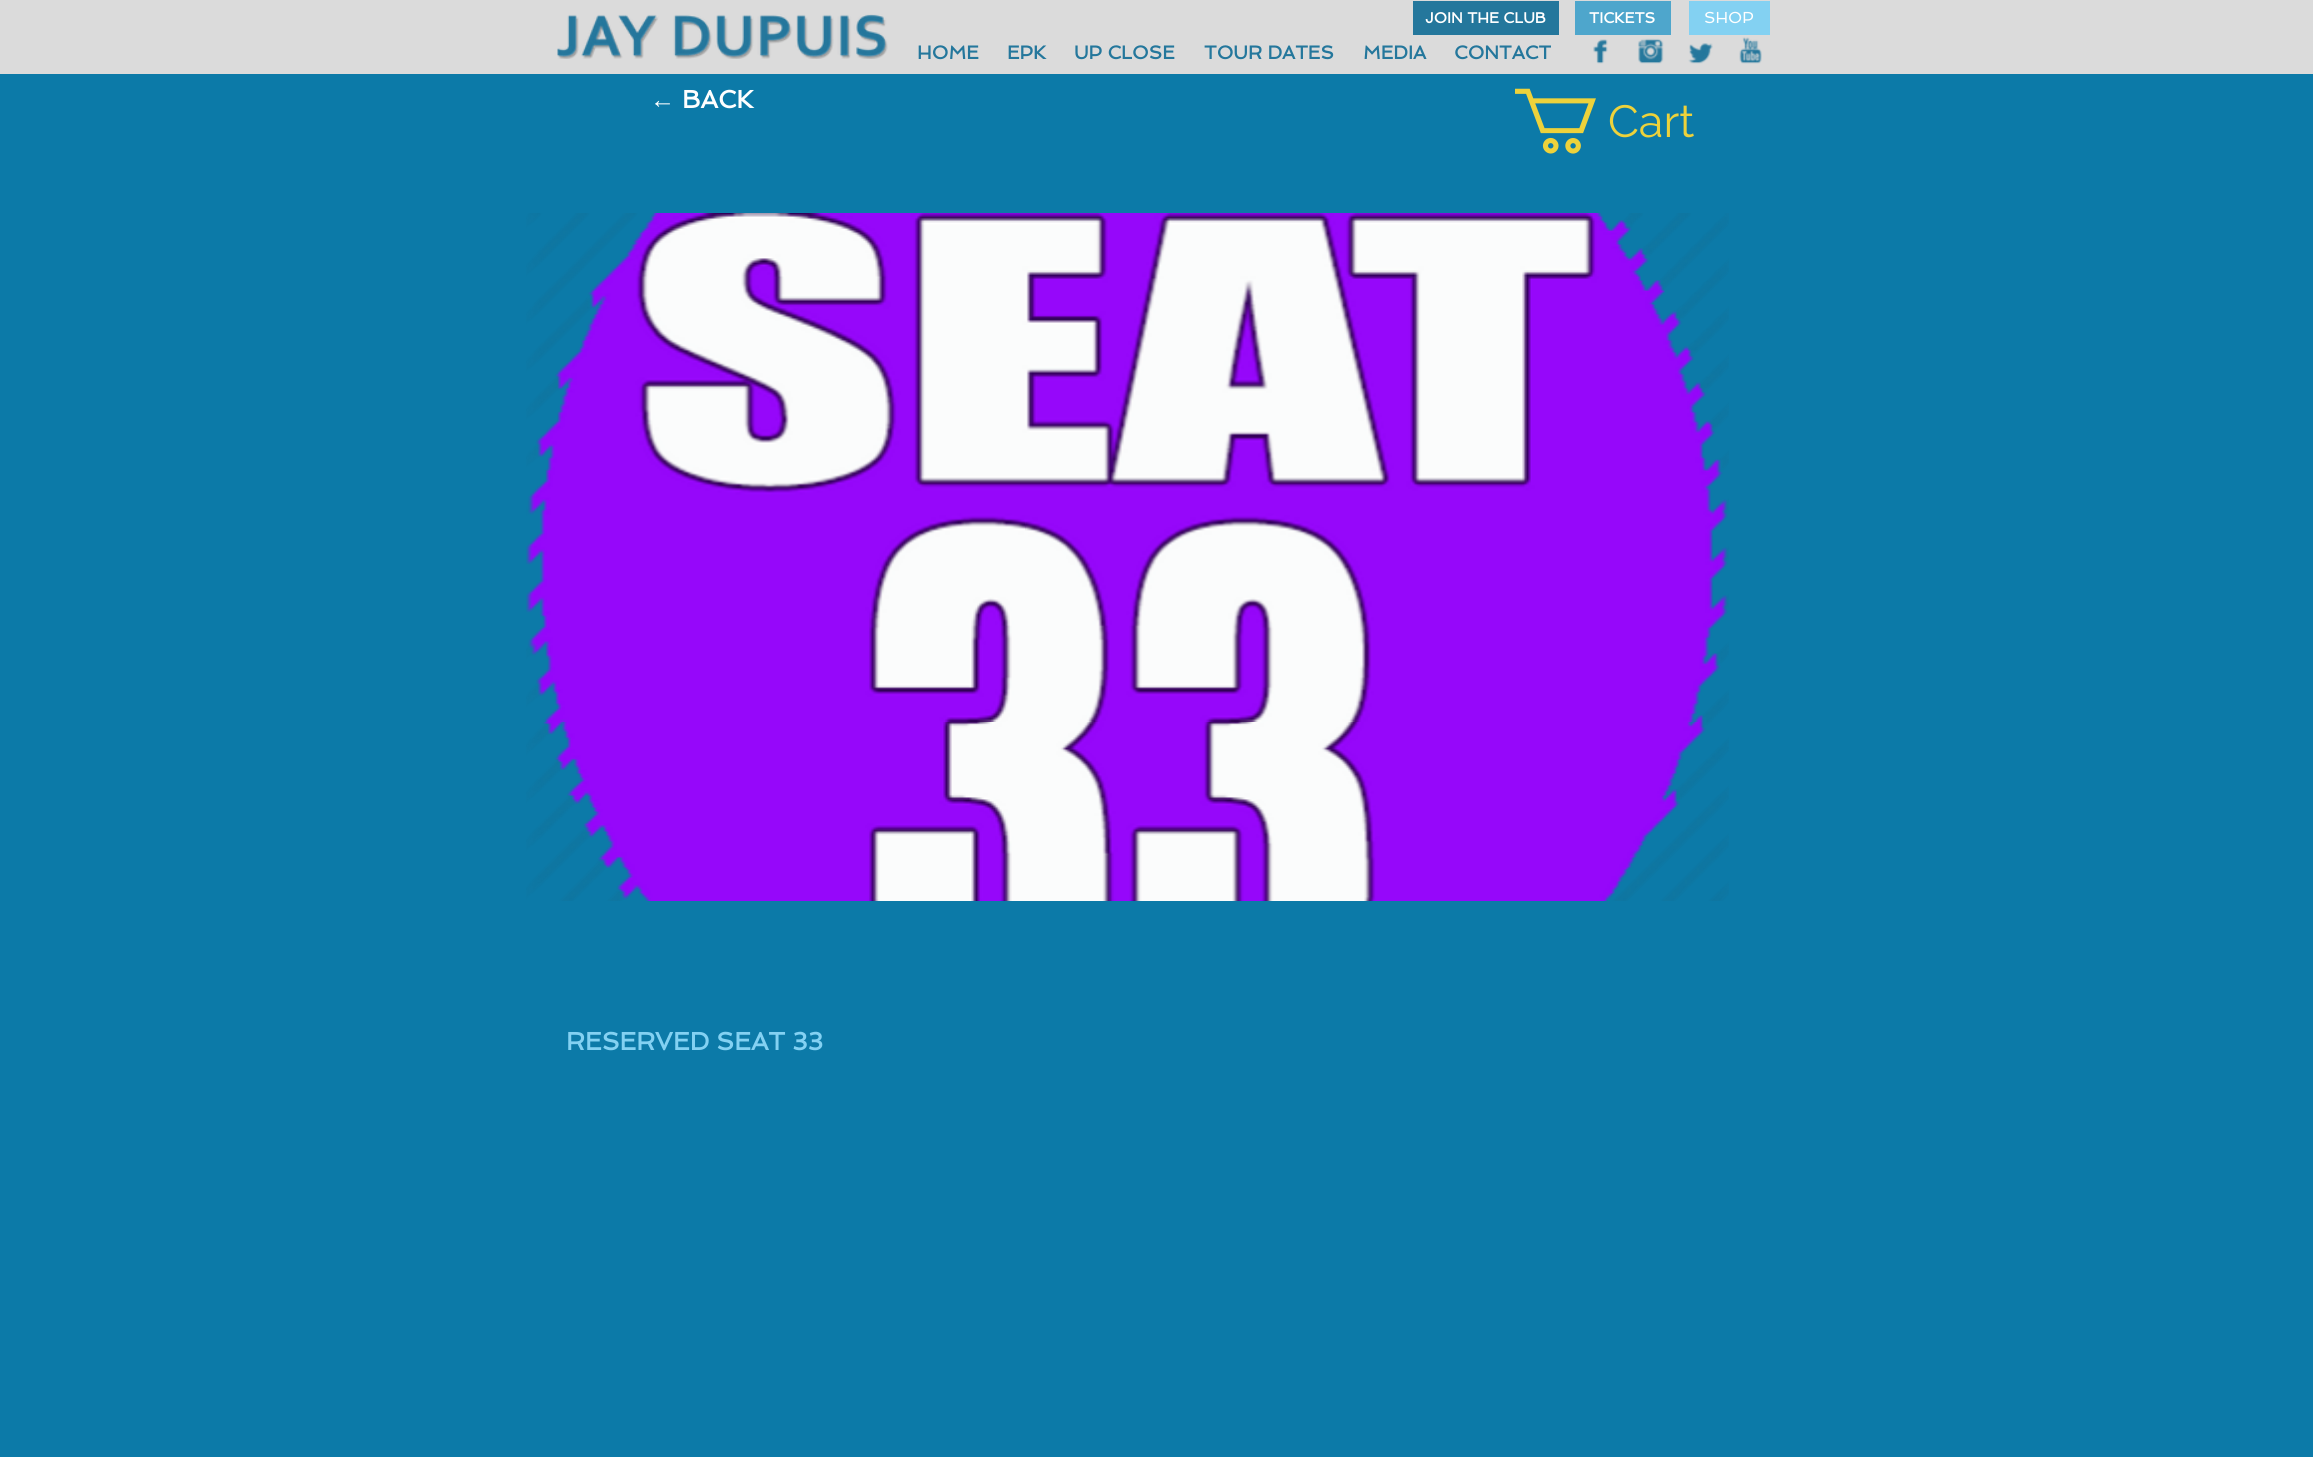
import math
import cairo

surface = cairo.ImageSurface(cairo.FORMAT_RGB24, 2313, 1457)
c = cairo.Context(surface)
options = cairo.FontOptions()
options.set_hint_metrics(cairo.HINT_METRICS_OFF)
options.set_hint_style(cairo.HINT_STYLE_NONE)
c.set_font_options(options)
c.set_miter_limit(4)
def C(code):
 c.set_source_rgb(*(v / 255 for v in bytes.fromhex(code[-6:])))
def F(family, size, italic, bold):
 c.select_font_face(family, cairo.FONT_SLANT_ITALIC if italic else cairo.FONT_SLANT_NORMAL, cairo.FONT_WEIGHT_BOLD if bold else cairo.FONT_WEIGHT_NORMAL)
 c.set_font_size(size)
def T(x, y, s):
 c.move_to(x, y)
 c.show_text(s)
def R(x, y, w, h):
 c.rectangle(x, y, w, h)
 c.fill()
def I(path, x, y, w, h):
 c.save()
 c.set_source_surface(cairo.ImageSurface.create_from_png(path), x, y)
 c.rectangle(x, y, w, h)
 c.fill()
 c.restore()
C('0c7aa8')
c.paint()
C('dbdbdb')
R(0,0,2313,74)
I('1.png',557,14,331,45)
C('24779c')
R(1413,1,146,34)
F('Spinnaker',15,0,1)
C('ffffff')
T(1425,23,'JOIN THE CLUB')
C('4ea6cc')
R(1575,1,96,34)
C('ffffff')
T(1589,23,'TICKETS')
C('83d1f2')
R(1689,1,81,34)
F('Spinnaker',16,0,0)
C('ffffff')
T(1704,23,'SHOP')
F('Spinnaker',18.75,0,1)
C('24779c')
T(917,59,'HOME')
T(1007,59,'EPK')
T(1074,59,'UP CLOSE')
T(1204,59,'TOUR DATES')
T(1363,59,'MEDIA')
T(1454,59,'CONTACT')
I('2.png',1593,39,15,25)
I('3.png',1638,38,26,26)
I('4.png',1688,43,25,21)
I('5.png',1739,37,23,27)
F('Liberation Sans',25,0,1)
C('ffffff')
T(650,108,'←')
F('Spinnaker',25,0,1)
T(682,108,'BACK')
I('6.png',1515,88,81,66)
F('Raleway',45,0,0)
C('edd23b')
T(1608,137,'Cart')
I('7.png',526,213,1203,688)
F('Spinnaker',25,0,1)
C('83d1f2')
T(566,1050,'RESERVED SEAT 33')
surface.write_to_png('o.png')
